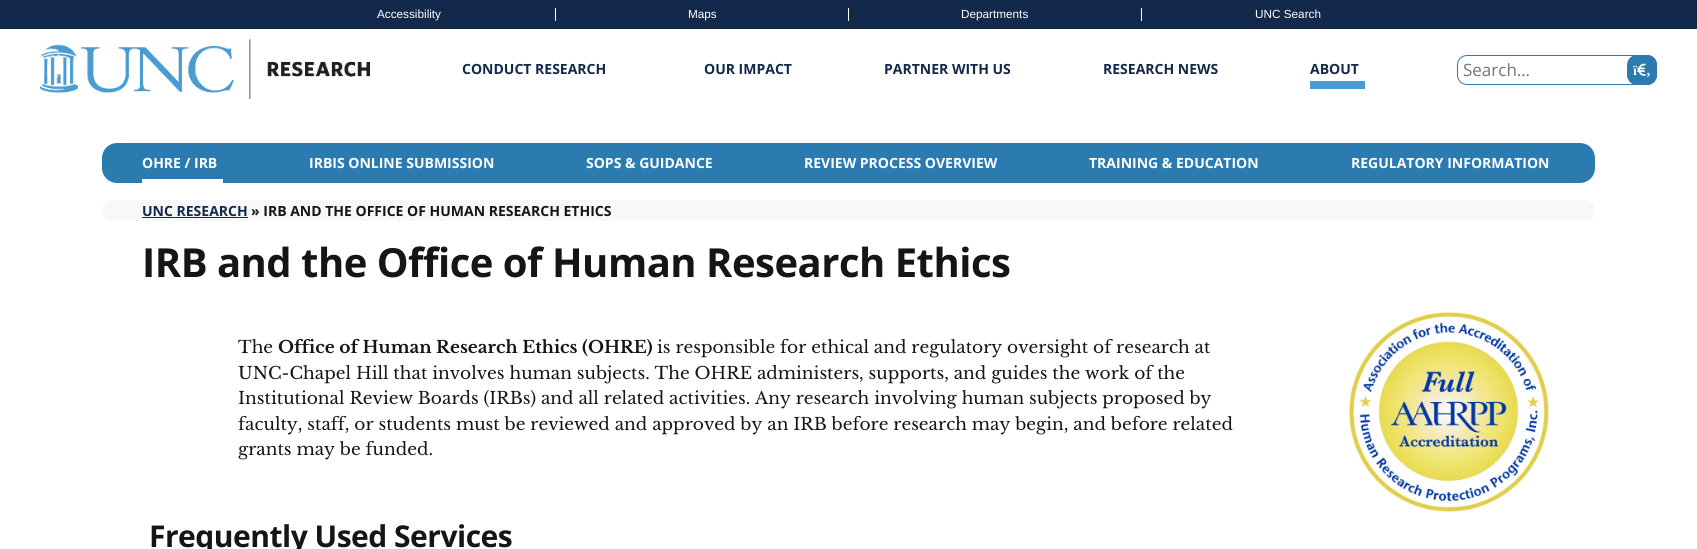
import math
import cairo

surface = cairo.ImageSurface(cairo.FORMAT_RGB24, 1697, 549)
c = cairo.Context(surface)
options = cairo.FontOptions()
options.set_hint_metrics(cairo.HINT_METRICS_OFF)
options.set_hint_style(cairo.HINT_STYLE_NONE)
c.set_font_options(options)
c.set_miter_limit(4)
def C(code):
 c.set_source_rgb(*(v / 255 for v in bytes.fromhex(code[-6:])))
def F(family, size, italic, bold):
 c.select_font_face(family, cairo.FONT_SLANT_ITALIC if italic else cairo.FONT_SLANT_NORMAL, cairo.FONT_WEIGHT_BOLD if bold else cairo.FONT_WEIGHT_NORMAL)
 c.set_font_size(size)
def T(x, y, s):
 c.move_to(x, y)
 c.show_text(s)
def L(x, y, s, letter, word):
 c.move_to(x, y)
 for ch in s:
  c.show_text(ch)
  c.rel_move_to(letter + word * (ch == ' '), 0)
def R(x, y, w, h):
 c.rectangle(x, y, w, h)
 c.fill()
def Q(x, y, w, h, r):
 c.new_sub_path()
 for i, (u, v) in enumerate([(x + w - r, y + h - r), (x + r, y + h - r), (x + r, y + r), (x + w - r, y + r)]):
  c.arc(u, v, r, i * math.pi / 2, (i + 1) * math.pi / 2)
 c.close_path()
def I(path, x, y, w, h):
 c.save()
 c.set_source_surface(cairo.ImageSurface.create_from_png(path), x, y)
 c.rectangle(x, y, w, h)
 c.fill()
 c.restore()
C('13294b')
c.paint()
C('ffffff')
R(555,8,1,13)
F('Liberation Sans',11.75,0,0)
T(377,18,'Accessibility')
R(848,8,1,13)
T(688,18,'Maps')
R(1141,8,1,13)
T(961,18,'Departments')
T(1255,18,'UNC Search')
R(0,29,1697,520)
I('1.png',40,39,330,60)
F('Open Sans',14,0,1)
C('13294b')
T(462,74,'CONDUCT RESEARCH')
T(704,74,'OUR IMPACT')
T(884,74,'PARTNER WITH US')
T(1103,74,'RESEARCH NEWS')
C('4b9cd3')
R(1310,81,55,8)
C('13294b')
T(1310,74,'ABOUT')
Q(1457.5,55.5,199,29,9.5)
C('2b7bb1')
c.set_line_width(1)
c.stroke()
F('Open Sans',17,0,0)
C('757575')
T(1463,76,'Search…')
C('2b7bb1')
Q(1627,55,30,30,10)
c.fill()
I('2.png',1637,63,9,13)
F('Liberation Serif',14,0,1)
C('ffffff')
T(1633,75,'ï')
T(1646,75,'‚')
C('2b7bb1')
Q(102,143,1493,40,15)
c.fill()
C('ffffff')
R(142,179,81,4)
F('Open Sans',14,0,1)
T(142,168,'OHRE / IRB')
T(309,168,'IRBIS ONLINE SUBMISSION')
T(586,168,'SOPS & GUIDANCE')
T(804,168,'REVIEW PROCESS OVERVIEW')
T(1089,168,'TRAINING & EDUCATION')
T(1351,168,'REGULATORY INFORMATION')
C('f7f8f9')
Q(102,200,1493,21,10.5)
c.fill()
C('13294b')
T(142,216,'UNC RESEARCH')
R(142,217,106,1)
C('151515')
T(251,216,'» IRB AND THE OFFICE OF HUMAN RESEARCH ETHICS')
F('Open Sans',40,0,1)
L(142,277,'IRB and the Office of Human Research Ethics',-.5,0)
F('Libre Baskerville',17,0,0)
T(238,353,'The')
F('Libre Baskerville',17,0,1)
T(278,353,'Office of Human Research Ethics (OHRE)')
F('Libre Baskerville',17,0,0)
T(657,353,'is responsible for ethical and regulatory oversight of research at')
T(238,379,'UNC-Chapel Hill that involves human subjects. The OHRE administers, supports, and guides the work of the')
T(238,404,'Institutional Review Boards (IRBs) and all related activities. Any research involving human subjects proposed by')
T(238,430,'faculty, staff, or students must be reviewed and approved by an IRB before research may begin, and before related')
T(238,455,'grants may be funded.')
I('3.png',1349,312,200,200)
F('Open Sans',30,0,1)
L(149,547,'Frequently Used Services',-.5,0)
surface.write_to_png('o.png')
